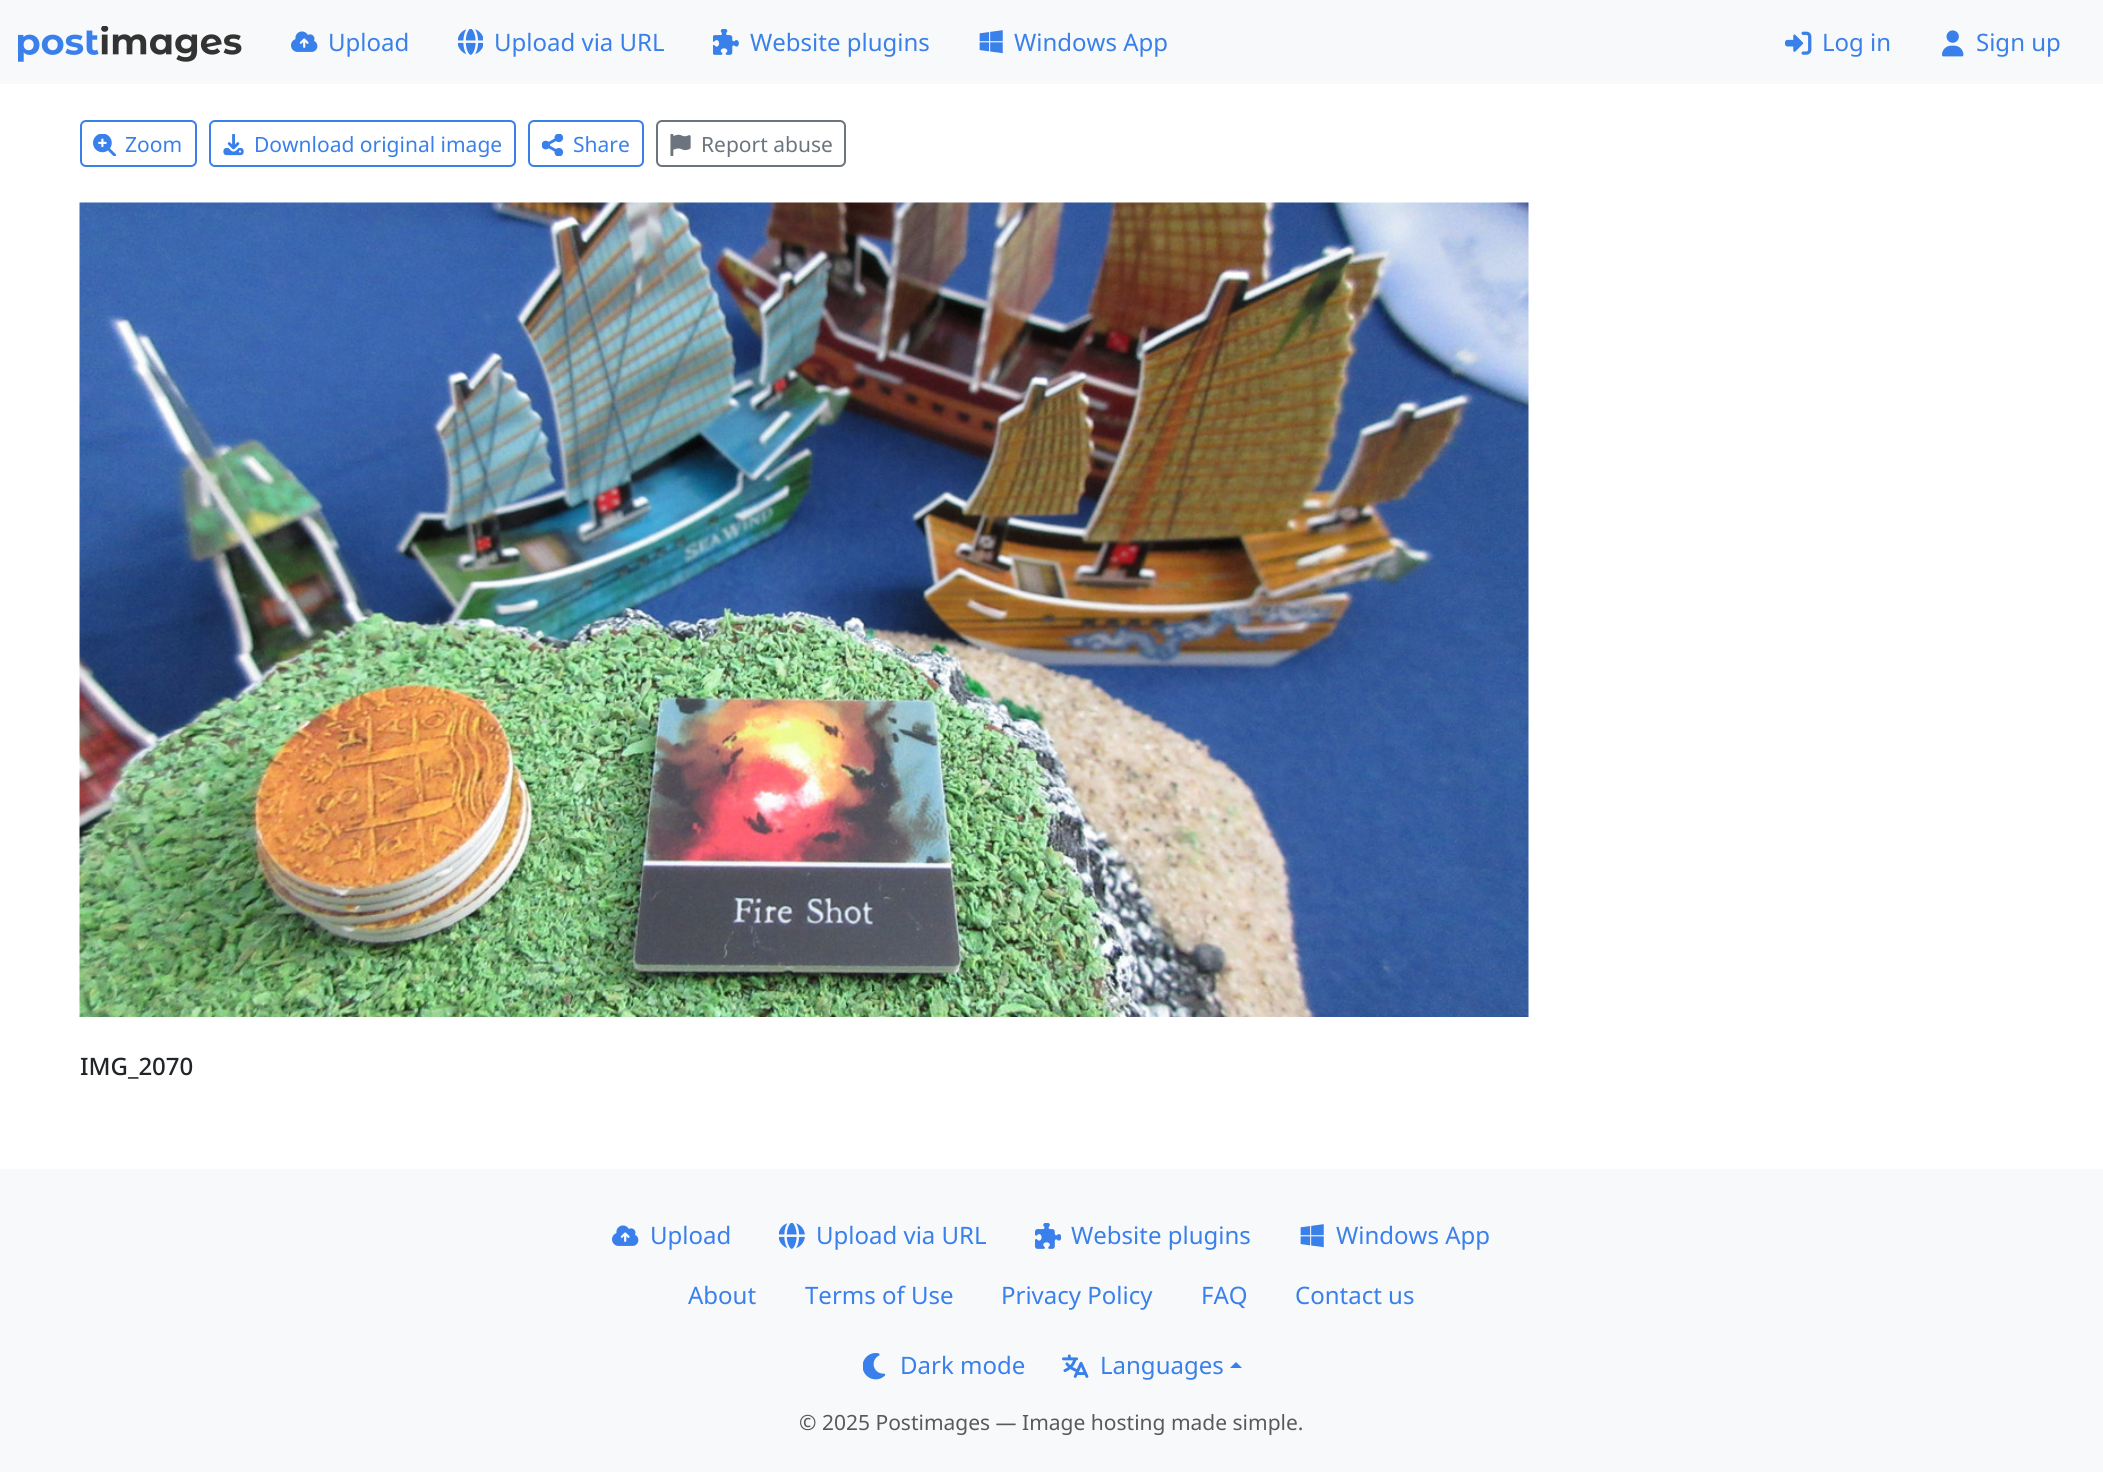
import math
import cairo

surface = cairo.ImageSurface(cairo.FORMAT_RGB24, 2103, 1472)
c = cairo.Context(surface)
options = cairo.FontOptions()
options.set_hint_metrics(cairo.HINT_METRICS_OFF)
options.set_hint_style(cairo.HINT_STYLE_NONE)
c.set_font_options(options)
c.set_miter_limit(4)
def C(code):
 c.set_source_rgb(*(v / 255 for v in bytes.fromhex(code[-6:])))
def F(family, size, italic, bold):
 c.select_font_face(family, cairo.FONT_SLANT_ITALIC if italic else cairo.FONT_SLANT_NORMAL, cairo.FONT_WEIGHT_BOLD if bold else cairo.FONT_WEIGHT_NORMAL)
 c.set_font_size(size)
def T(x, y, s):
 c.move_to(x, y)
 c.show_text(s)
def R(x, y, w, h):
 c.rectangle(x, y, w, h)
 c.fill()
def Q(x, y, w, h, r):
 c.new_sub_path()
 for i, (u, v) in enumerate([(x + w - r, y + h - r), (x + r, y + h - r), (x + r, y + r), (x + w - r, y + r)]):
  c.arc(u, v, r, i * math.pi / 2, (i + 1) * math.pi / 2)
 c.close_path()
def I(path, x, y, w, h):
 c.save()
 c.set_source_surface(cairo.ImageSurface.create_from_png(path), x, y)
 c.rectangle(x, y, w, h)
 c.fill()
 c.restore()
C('ffffff')
c.paint()
C('f8f9fa')
R(0,0,2103,84)
I('1.png',18,26,224,36)
I('2.png',291,31,27,21)
F('Noto Sans',24,0,0)
C('3a80ea')
T(328,51,'Upload')
I('3.png',458,29,25,26)
T(494,51,'Upload via URL')
I('4.png',713,29,26,26)
T(750,51,'Website plugins')
I('5.png',979,30,24,24)
T(1014,51,'Windows App')
I('6.png',1785,31,27,24)
T(1822,51,'Log in')
I('7.png',1942,30,22,27)
T(1976,51,'Sign up')
Q(81,121,115,45,5)
c.stroke()
I('8.png',93,134,23,22)
F('Noto Sans',21,0,0)
T(125,152,'Zoom')
Q(210,121,305,45,5)
c.stroke()
I('9.png',223,134,21,22)
T(254,152,'Download original image')
Q(529,121,114,45,5)
c.stroke()
I('10.png',542,134,22,22)
T(573,152,'Share')
Q(657,121,188,45,5)
C('6c757d')
c.stroke()
I('11.png',670,134,21,22)
T(701,152,'Report abuse')
I('12.png',79,202,1450,815)
F('Noto Sans Medium',24,0,0)
C('212529')
T(80,1075,'IMG_2070')
C('f8f9fa')
R(0,1169,2103,303)
I('2.png',612,1225,27,21)
F('Noto Sans',24,0,0)
C('3a80ea')
T(650,1244,'Upload')
I('13.png',779,1223,26,26)
T(816,1244,'Upload via URL')
I('14.png',1035,1223,26,26)
T(1071,1244,'Website plugins')
I('5.png',1300,1224,24,24)
T(1336,1244,'Windows App')
T(688,1304,'About')
T(805,1304,'Terms of Use')
T(1001,1304,'Privacy Policy')
T(1201,1304,'FAQ')
T(1295,1304,'Contact us')
I('15.png',863,1353,23,27)
T(900,1374,'Dark mode')
I('16.png',1062,1354,27,24)
T(1100,1374,'Languages')
c.new_path()
c.move_to(1242,1368)
c.line_to(1230,1368)
c.line_to(1236,1362)
c.close_path()
c.fill()
F('Noto Sans',21,0,0)
C('575a5d')
T(799,1430,'© 2025 Postimages — Image hosting made simple.')
surface.write_to_png('o.png')
